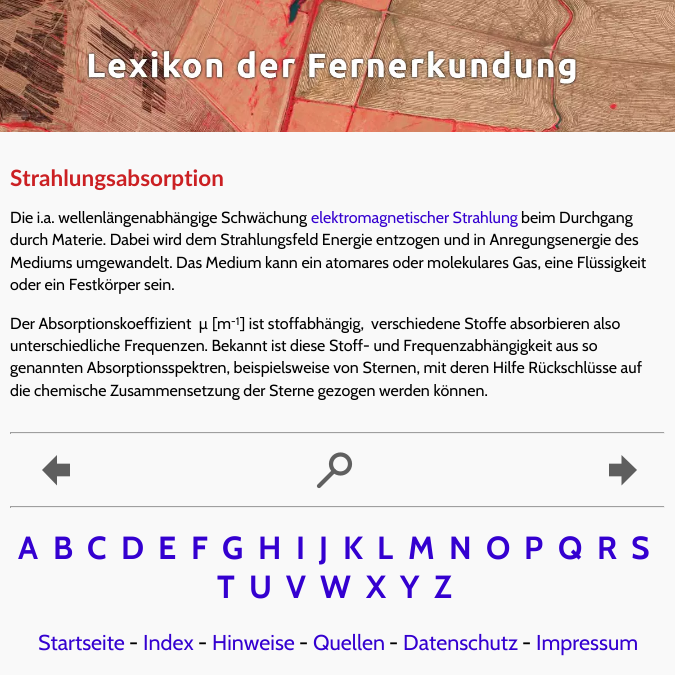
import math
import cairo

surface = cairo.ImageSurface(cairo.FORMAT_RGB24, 675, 675)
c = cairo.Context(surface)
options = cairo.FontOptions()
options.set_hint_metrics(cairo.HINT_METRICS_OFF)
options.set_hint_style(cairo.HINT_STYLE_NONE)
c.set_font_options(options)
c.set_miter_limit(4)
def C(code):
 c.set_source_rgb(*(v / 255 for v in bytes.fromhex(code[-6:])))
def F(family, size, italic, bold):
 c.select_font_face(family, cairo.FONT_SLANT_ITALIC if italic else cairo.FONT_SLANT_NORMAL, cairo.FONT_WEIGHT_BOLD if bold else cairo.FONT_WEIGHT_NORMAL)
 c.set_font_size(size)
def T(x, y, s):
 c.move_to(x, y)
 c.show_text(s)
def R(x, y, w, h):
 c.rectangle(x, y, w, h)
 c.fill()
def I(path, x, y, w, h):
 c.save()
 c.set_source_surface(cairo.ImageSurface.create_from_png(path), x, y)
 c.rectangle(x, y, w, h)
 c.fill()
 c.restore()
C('ffffff')
c.paint()
I('1.png',0,0,675,132)
C('f9f9f9')
R(0,132,675,543)
F('Lato',22.5,0,1)
C('cb2023')
T(10,186,'Strahlungsabsorption')
F('Cabin',16,0,0)
C('000000')
T(10,223,'Die i.a. wellenlängenabhängige Schwächung')
C('3400d0')
T(311,223,'elektromagnetischer Strahlung')
C('000000')
T(521,223,'beim Durchgang')
T(10,245,'durch Materie. Dabei wird dem Strahlungsfeld Energie entzogen und in Anregungsenergie des')
T(10,268,'Mediums umgewandelt. Das Medium kann ein atomares oder molekulares Gas, eine Flüssigkeit')
T(10,290,'oder ein Festkörper sein.')
T(10,329,'Der Absorptionskoeffizient  µ [m')
F('Cabin',11,0,0)
T(231,325,'-1')
F('Cabin',16,0,0)
T(240,329,'] ist stoffabhängig,  verschiedene Stoffe absorbieren also')
T(10,351,'unterschiedliche Frequenzen. Bekannt ist diese Stoff- und Frequenzabhängigkeit aus so')
T(10,373,'genannten Absorptionsspektren, beispielsweise von Sternen, mit deren Hilfe Rückschlüsse auf')
T(10,396,'die chemische Zusammensetzung der Sterne gezogen werden können.')
C('9f9f9f')
R(10,432,655,1)
C('eeeeee')
R(664,432,1,2)
R(10,433,655,1)
C('9f9f9f')
R(10,432,1,2)
c.new_path()
c.move_to(55,470)
c.line_to(70,470)
C('5e5e5e')
c.set_line_width(12.6)
c.set_line_join(cairo.LINE_JOIN_ROUND)
c.stroke()
c.new_path()
c.move_to(57,455)
c.line_to(57,485.5)
c.line_to(42,470)
c.close_path()
c.fill()
c.new_path()
c.move_to(319,486)
c.line_to(334,471)
C('606060')
c.set_line_width(4.2)
c.set_line_cap(cairo.LINE_CAP_ROUND)
c.set_line_join(cairo.LINE_JOIN_MITER)
c.stroke()
c.arc(340.5,464,9.5,0,2 * math.pi)
c.set_line_cap(cairo.LINE_CAP_BUTT)
c.stroke()
c.new_path()
c.move_to(623.5,470)
c.line_to(609,470)
C('5e5e5e')
c.set_line_width(12.6)
c.set_line_join(cairo.LINE_JOIN_ROUND)
c.stroke()
c.new_path()
c.move_to(621.5,485.5)
c.line_to(621.5,455)
c.line_to(637,470)
c.close_path()
c.fill()
C('9f9f9f')
R(10,506,655,1)
C('eeeeee')
R(664,506,1,2)
R(10,507,655,1)
C('9f9f9f')
R(10,506,1,2)
F('Cabin',32,0,1)
C('3400d0')
T(18,559,'A')
T(53,559,'B')
T(87,559,'C')
T(121,559,'D')
T(158,559,'E')
T(191,559,'F')
T(222,559,'G')
T(258,559,'H')
T(296,559,'I')
T(319,559,'J')
T(343,559,'K')
T(377,559,'L')
T(408,559,'M')
T(449,559,'N')
T(486,559,'O')
T(524,559,'P')
T(558,559,'Q')
T(597,559,'R')
T(631,559,'S')
T(217,598,'T')
T(249,598,'U')
T(286,598,'V')
T(320,598,'W')
T(366,598,'X')
T(400,598,'Y')
T(434,598,'Z')
F('Cabin',21.5,0,0)
T(38,650,'Startseite')
C('000000')
T(129,650,'-')
C('3400d0')
T(143,650,'Index')
C('000000')
T(198,650,'-')
C('3400d0')
T(212,650,'Hinweise')
C('000000')
T(299,650,'-')
C('3400d0')
T(313,650,'Quellen')
C('000000')
T(389,650,'-')
C('3400d0')
T(403,650,'Datenschutz')
C('000000')
T(522,650,'-')
C('3400d0')
T(536,650,'Impressum')
surface.write_to_png('o.png')
